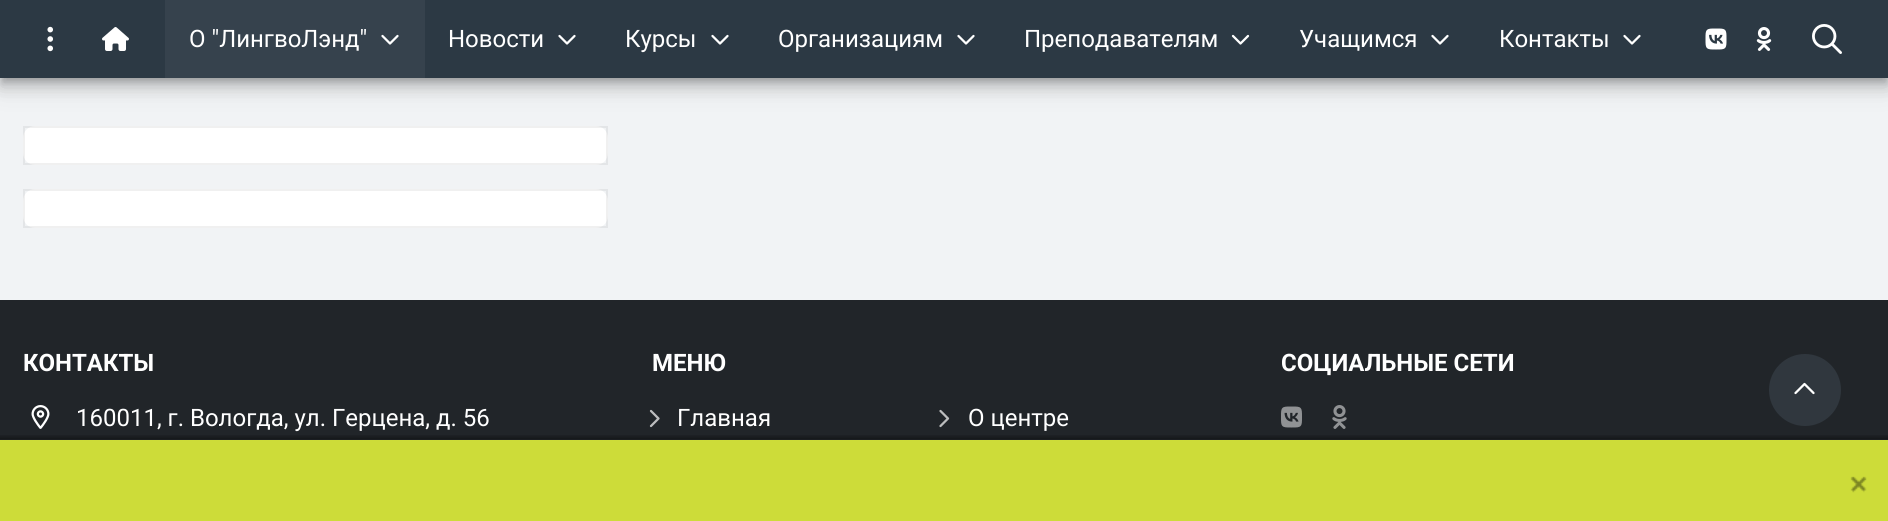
import math
import cairo

surface = cairo.ImageSurface(cairo.FORMAT_RGB24, 1888, 521)
c = cairo.Context(surface)
options = cairo.FontOptions()
options.set_hint_metrics(cairo.HINT_METRICS_OFF)
options.set_hint_style(cairo.HINT_STYLE_NONE)
c.set_font_options(options)
c.set_miter_limit(4)
def C(code):
 c.set_source_rgb(*(v / 255 for v in bytes.fromhex(code[-6:])))
def F(family, size, italic, bold):
 c.select_font_face(family, cairo.FONT_SLANT_ITALIC if italic else cairo.FONT_SLANT_NORMAL, cairo.FONT_WEIGHT_BOLD if bold else cairo.FONT_WEIGHT_NORMAL)
 c.set_font_size(size)
def T(x, y, s):
 c.move_to(x, y)
 c.show_text(s)
def R(x, y, w, h):
 c.rectangle(x, y, w, h)
 c.fill()
def Q(x, y, w, h, r):
 c.new_sub_path()
 for i, (u, v) in enumerate([(x + w - r, y + h - r), (x + r, y + h - r), (x + r, y + r), (x + w - r, y + r)]):
  c.arc(u, v, r, i * math.pi / 2, (i + 1) * math.pi / 2)
 c.close_path()
def S(x, y, w, h, r, blur, alpha):
 c.push_group_with_content(cairo.CONTENT_ALPHA)
 c.set_operator(cairo.OPERATOR_SOURCE)
 for i in range(15, -16, -2):
  e = blur * i / 6
  if min(w, h) + 2 * e > 0:
   c.set_source_rgba(0, 0, 0, alpha * math.erfc((i - 1) / 8.5) / 2)
   Q(x - e, y - e, w + 2 * e, h + 2 * e, max(0, min(r + e + blur * .6, min(w, h) / 2 + e)))
   c.fill()
 c.mask(c.pop_group())
def I(path, x, y, w, h):
 c.save()
 c.set_source_surface(cairo.ImageSurface.create_from_png(path), x, y)
 c.rectangle(x, y, w, h)
 c.fill()
 c.restore()
C('f1f3f5')
c.paint()
C('ffffff')
Q(23,126,585,39,12)
c.fill()
c.rectangle(24,127,583,37)
c.set_source_rgba(0,0,0,0.06)
c.stroke()
C('000000')
S(0,9,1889,78,0,13.5,.12)
S(0,9,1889,78,0,7.5,.14)
S(2,6,1885,75,0,4,.2)
C('2c3944')
R(0,0,1888,78)
I('1.png',47,26,6,26)
I('2.png',102,27,27,24)
I('3.png',381,34,18,11)
c.set_source_rgba(1,1,1,0.05)
R(165,0,260,78)
F('Roboto',24,0,0)
C('ffffff')
T(189,47,'О "ЛингвоЛэнд"')
T(448,47,'Новости')
I('3.png',558,34,18,11)
T(625,47,'Курсы')
I('3.png',711,34,18,11)
T(778,47,'Организациям')
I('3.png',957,34,18,11)
T(1024,47,'Преподавателям')
I('4.png',1231,34,19,11)
T(1299,47,'Учащимся')
I('3.png',1431,34,18,11)
T(1499,47,'Контакты')
I('3.png',1623,34,18,11)
I('5.png',1705,28,22,22)
I('6.png',1756,27,16,24)
I('7.png',1812,24,30,30)
Q(23,189,585,39,12)
c.fill()
c.rectangle(24,190,583,37)
c.set_source_rgba(0,0,0,0.06)
c.stroke()
C('212529')
R(0,300,1888,140)
F('Roboto',24,0,1)
C('ffffff')
T(23,371,'КОНТАКТЫ')
I('8.png',31,405,19,24)
F('Roboto',24,0,0)
T(76,426,'160011, г. Вологда, ул. Герцена, д. 56')
F('Roboto',24,0,1)
T(652,371,'МЕНЮ')
I('9.png',649,409,11,19)
F('Roboto',24,0,0)
T(677,426,'Главная')
I('10.png',939,409,11,19)
T(968,426,'О центре')
F('Roboto',24,0,1)
T(1281,371,'СОЦИАЛЬНЫЕ СЕТИ')
I('11.png',1281,406,21,22)
I('12.png',1332,405,15,24)
C('30373e')
c.arc(1805,390,36,0,2 * math.pi)
c.fill()
I('13.png',1794,382,21,13)
I('14.png',0,435,1888,5)
C('cddc39')
R(0,440,1888,81)
I('15.png',1850,476,17,17)
surface.write_to_png('o.png')
